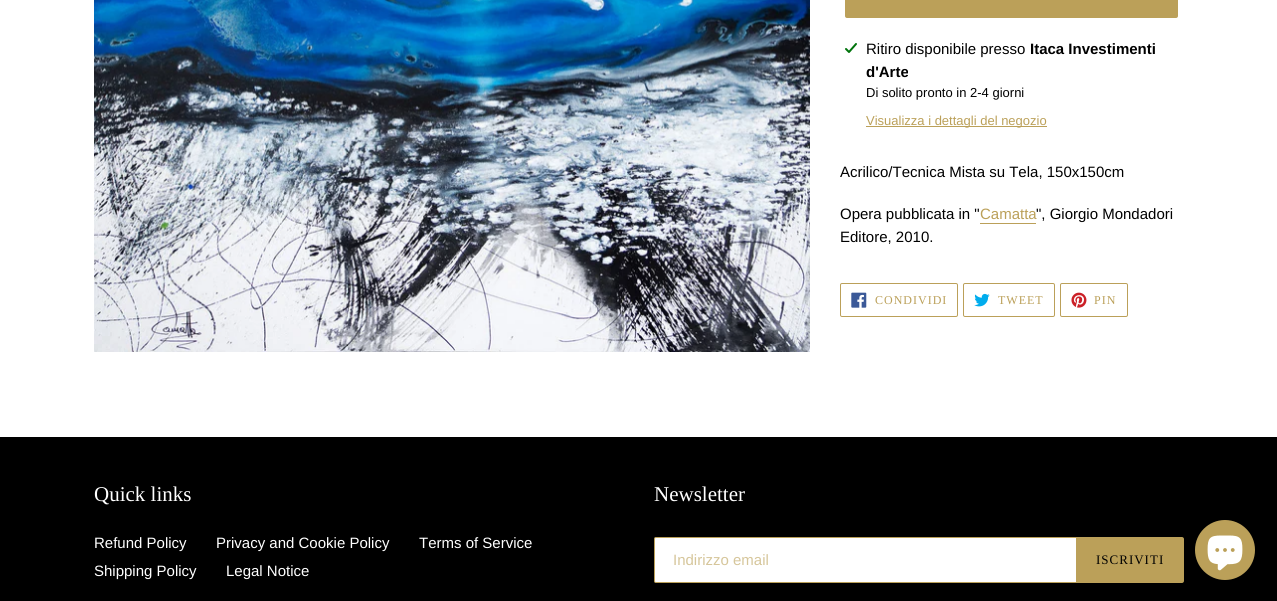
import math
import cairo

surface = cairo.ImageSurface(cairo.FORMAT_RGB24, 1277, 601)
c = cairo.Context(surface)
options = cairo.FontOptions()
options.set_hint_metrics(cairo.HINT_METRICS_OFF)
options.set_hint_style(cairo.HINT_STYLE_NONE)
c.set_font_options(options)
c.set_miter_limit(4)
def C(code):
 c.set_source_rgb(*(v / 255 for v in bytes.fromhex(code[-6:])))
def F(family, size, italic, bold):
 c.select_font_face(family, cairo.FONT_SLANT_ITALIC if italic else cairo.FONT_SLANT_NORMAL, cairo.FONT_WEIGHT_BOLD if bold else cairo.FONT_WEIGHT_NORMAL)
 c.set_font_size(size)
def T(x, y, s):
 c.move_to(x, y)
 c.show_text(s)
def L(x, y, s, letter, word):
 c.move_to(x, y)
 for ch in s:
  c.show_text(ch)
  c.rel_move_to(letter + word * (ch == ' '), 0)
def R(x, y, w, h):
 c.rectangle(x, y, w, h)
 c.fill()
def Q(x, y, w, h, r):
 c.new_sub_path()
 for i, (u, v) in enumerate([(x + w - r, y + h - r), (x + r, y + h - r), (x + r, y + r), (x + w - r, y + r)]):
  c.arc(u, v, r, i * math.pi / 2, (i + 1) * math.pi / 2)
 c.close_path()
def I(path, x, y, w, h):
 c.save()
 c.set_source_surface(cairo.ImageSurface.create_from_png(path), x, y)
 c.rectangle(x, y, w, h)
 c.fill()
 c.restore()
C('ffffff')
c.paint()
I('1.png',94,0,716,352)
C('bba059')
Q(845,-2,333,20,2)
c.fill()
I('2.png',845,43,12,10)
F('Liberation Sans',15,0,0)
C('000000')
T(866,54,'Ritiro disponibile presso')
F('Liberation Sans',15,0,1)
T(1030,54,'Itaca Investimenti')
T(866,77,'d\'Arte')
F('Liberation Sans',13,0,0)
T(866,97,'Di solito pronto in 2-4 giorni')
C('bba059')
R(866,126,181,1)
T(866,125,'Visualizza i dettagli del negozio')
F('Liberation Sans',15,0,0)
C('000000')
T(840,177,'Acrilico/Tecnica Mista su Tela, 150x150cm')
T(840,219,'Opera pubblicata in "')
C('bba059')
T(980,219,'Camatta')
R(980,223,56,1)
C('000000')
T(1036,219,'", Giorgio Mondadori')
T(840,242,'Editore, 2010.')
Q(840.5,283.5,117,33,1.5)
C('bba059')
c.set_line_width(1)
c.stroke()
I('3.png',851,292,16,16)
F('Liberation Serif',12,0,0)
L(875,304,'CONDIVIDI',1,0)
Q(963.5,283.5,91,33,1.5)
c.stroke()
I('4.png',974,293,16,14)
L(998,304,'TWEET',1,0)
Q(1060.5,283.5,67,33,1.5)
c.stroke()
I('5.png',1071,292,16,16)
L(1094,304,'PIN',1,0)
C('000000')
R(0,437,1277,164)
F('Liberation Serif',21,0,0)
C('ffffff')
T(94,501,'Quick links')
F('Liberation Sans',15,0,0)
T(94,548,'Refund Policy')
T(216,548,'Privacy and Cookie Policy')
T(419,548,'Terms of Service')
T(94,576,'Shipping Policy')
T(226,576,'Legal Notice')
F('Liberation Serif',21,0,0)
T(654,501,'Newsletter')
c.new_path()
c.move_to(656,537.5)
c.line_to(1076.5,537.5)
c.line_to(1076.5,582.5)
c.line_to(656,582.5)
c.curve_to(655,582.5,654.5,582,654.5,581)
c.line_to(654.5,539)
c.curve_to(654.5,538,655,537.5,656,537.5)
c.close_path()
c.fill_preserve()
C('bba059')
c.stroke()
F('Liberation Sans',15,0,0)
C('d6c69b')
T(673,565,'Indirizzo email')
C('bba059')
c.new_path()
c.move_to(1077,537)
c.line_to(1182,537)
c.curve_to(1183,537,1184,538,1184,539)
c.line_to(1184,581)
c.curve_to(1184,582,1183,583,1182,583)
c.line_to(1077,583)
c.close_path()
c.fill()
F('Liberation Serif',13,0,0)
C('000000')
L(1096,564,'ISCRIVITI',1,0)
C('bba059')
c.new_path()
c.arc(1225,550,30,0,2 * math.pi)
c.fill()
I('6.png',1207,535,36,36)
surface.write_to_png('o.png')
